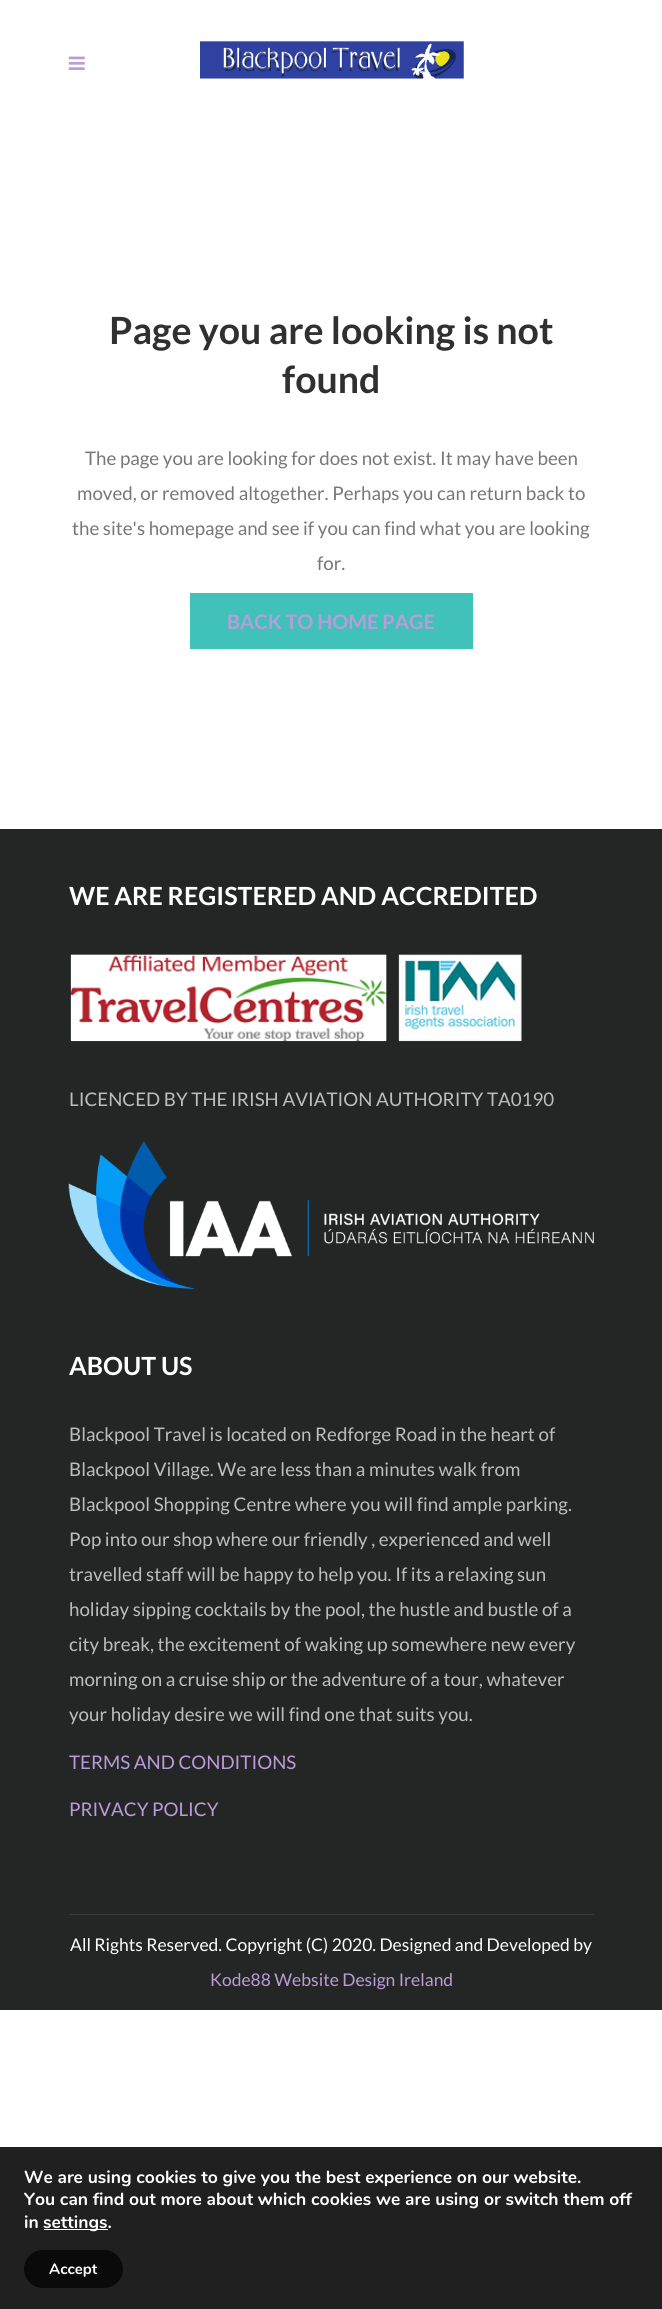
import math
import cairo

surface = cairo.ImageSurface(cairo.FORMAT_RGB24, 662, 2309)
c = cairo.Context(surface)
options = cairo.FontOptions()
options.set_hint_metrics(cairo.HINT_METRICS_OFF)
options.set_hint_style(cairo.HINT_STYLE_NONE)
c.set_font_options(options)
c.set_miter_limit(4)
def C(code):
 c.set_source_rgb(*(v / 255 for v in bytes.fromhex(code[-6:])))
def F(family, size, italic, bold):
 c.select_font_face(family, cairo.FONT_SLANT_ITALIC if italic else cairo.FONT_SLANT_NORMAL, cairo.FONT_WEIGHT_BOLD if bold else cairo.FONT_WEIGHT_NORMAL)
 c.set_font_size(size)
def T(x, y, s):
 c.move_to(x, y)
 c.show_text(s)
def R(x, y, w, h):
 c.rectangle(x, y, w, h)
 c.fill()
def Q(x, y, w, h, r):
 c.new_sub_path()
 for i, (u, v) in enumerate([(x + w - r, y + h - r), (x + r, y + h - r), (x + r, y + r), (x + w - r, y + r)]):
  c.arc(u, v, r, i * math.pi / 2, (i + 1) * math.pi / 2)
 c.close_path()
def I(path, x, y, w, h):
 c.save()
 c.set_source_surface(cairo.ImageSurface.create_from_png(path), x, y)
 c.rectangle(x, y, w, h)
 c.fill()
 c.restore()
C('ffffff')
c.paint()
I('1.png',68,56,17,14)
I('2.png',200,41,264,38)
F('Lato',37.5,0,1)
C('303030')
T(109,344,'Page you are looking is not')
T(282,393,'found')
F('Lato',18.75,0,0)
C('777777')
T(85,465,'The page you are looking for does not exist. It may have been')
T(77,500,'moved, or removed altogether. Perhaps you can return back to')
T(72,535,'the site\'s homepage and see if you can find what you are looking')
T(317,570,'for.')
C('40c1b9')
R(190,593,283,56)
F('Lato',20,0,1)
C('ba9cd8')
T(227,629,'BACK TO HOME PAGE')
C('242625')
R(0,829,662,1181)
F('Lato',25,0,1)
C('ffffff')
T(69,905,'WE ARE REGISTERED AND ACCREDITED')
I('3.png',70,954,452,88)
F('Lato',18.75,0,0)
C('bdbdbd')
T(69,1106,'LICENCED BY THE IRISH AVIATION AUTHORITY TA0190')
I('4.png',68,1141,526,148)
F('Lato',25,0,1)
C('ffffff')
T(69,1375,'ABOUT US')
F('Lato',18.75,0,0)
C('bdbdbd')
T(69,1441,'Blackpool Travel is located on Redforge Road in the heart of')
T(69,1476,'Blackpool Village. We are less than a minutes walk from')
T(69,1511,'Blackpool Shopping Centre where you will find ample parking.')
T(69,1546,'Pop into our shop where our friendly , experienced and well')
T(69,1581,'travelled staff will be happy to help you. If its a relaxing sun')
T(69,1616,'holiday sipping cocktails by the pool, the hustle and bustle of a')
T(69,1651,'city break, the excitement of waking up somewhere new every')
T(69,1686,'morning on a cruise ship or the adventure of a tour, whatever')
T(69,1721,'your holiday desire we will find one that suits you.')
C('ba9cd8')
T(69,1769,'TERMS AND CONDITIONS')
T(69,1816,'PRIVACY POLICY')
C('383938')
R(69,1914,525,1)
F('Lato',17.5,0,0)
C('ffffff')
T(70,1951,'All Rights Reserved. Copyright (C) 2020. Designed and Developed by')
C('ba9cd8')
T(210,1986,'Kode88 Website Design Ireland')
C('202020')
R(0,2147,662,162)
F('Nunito',17.5,0,1)
C('ffffff')
T(24,2183,'We are using cookies to give you the best experience on our website.')
T(24,2205,'You can find out more about which cookies we are using or switch them off')
T(24,2228,'in')
R(44,2229,64,1)
T(43,2228,'settings.')
C('0a0a0a')
Q(24,2250,99,38,19)
c.fill()
F('Nunito',15,0,1)
C('ffffff')
T(49,2274,'Accept')
surface.write_to_png('o.png')
